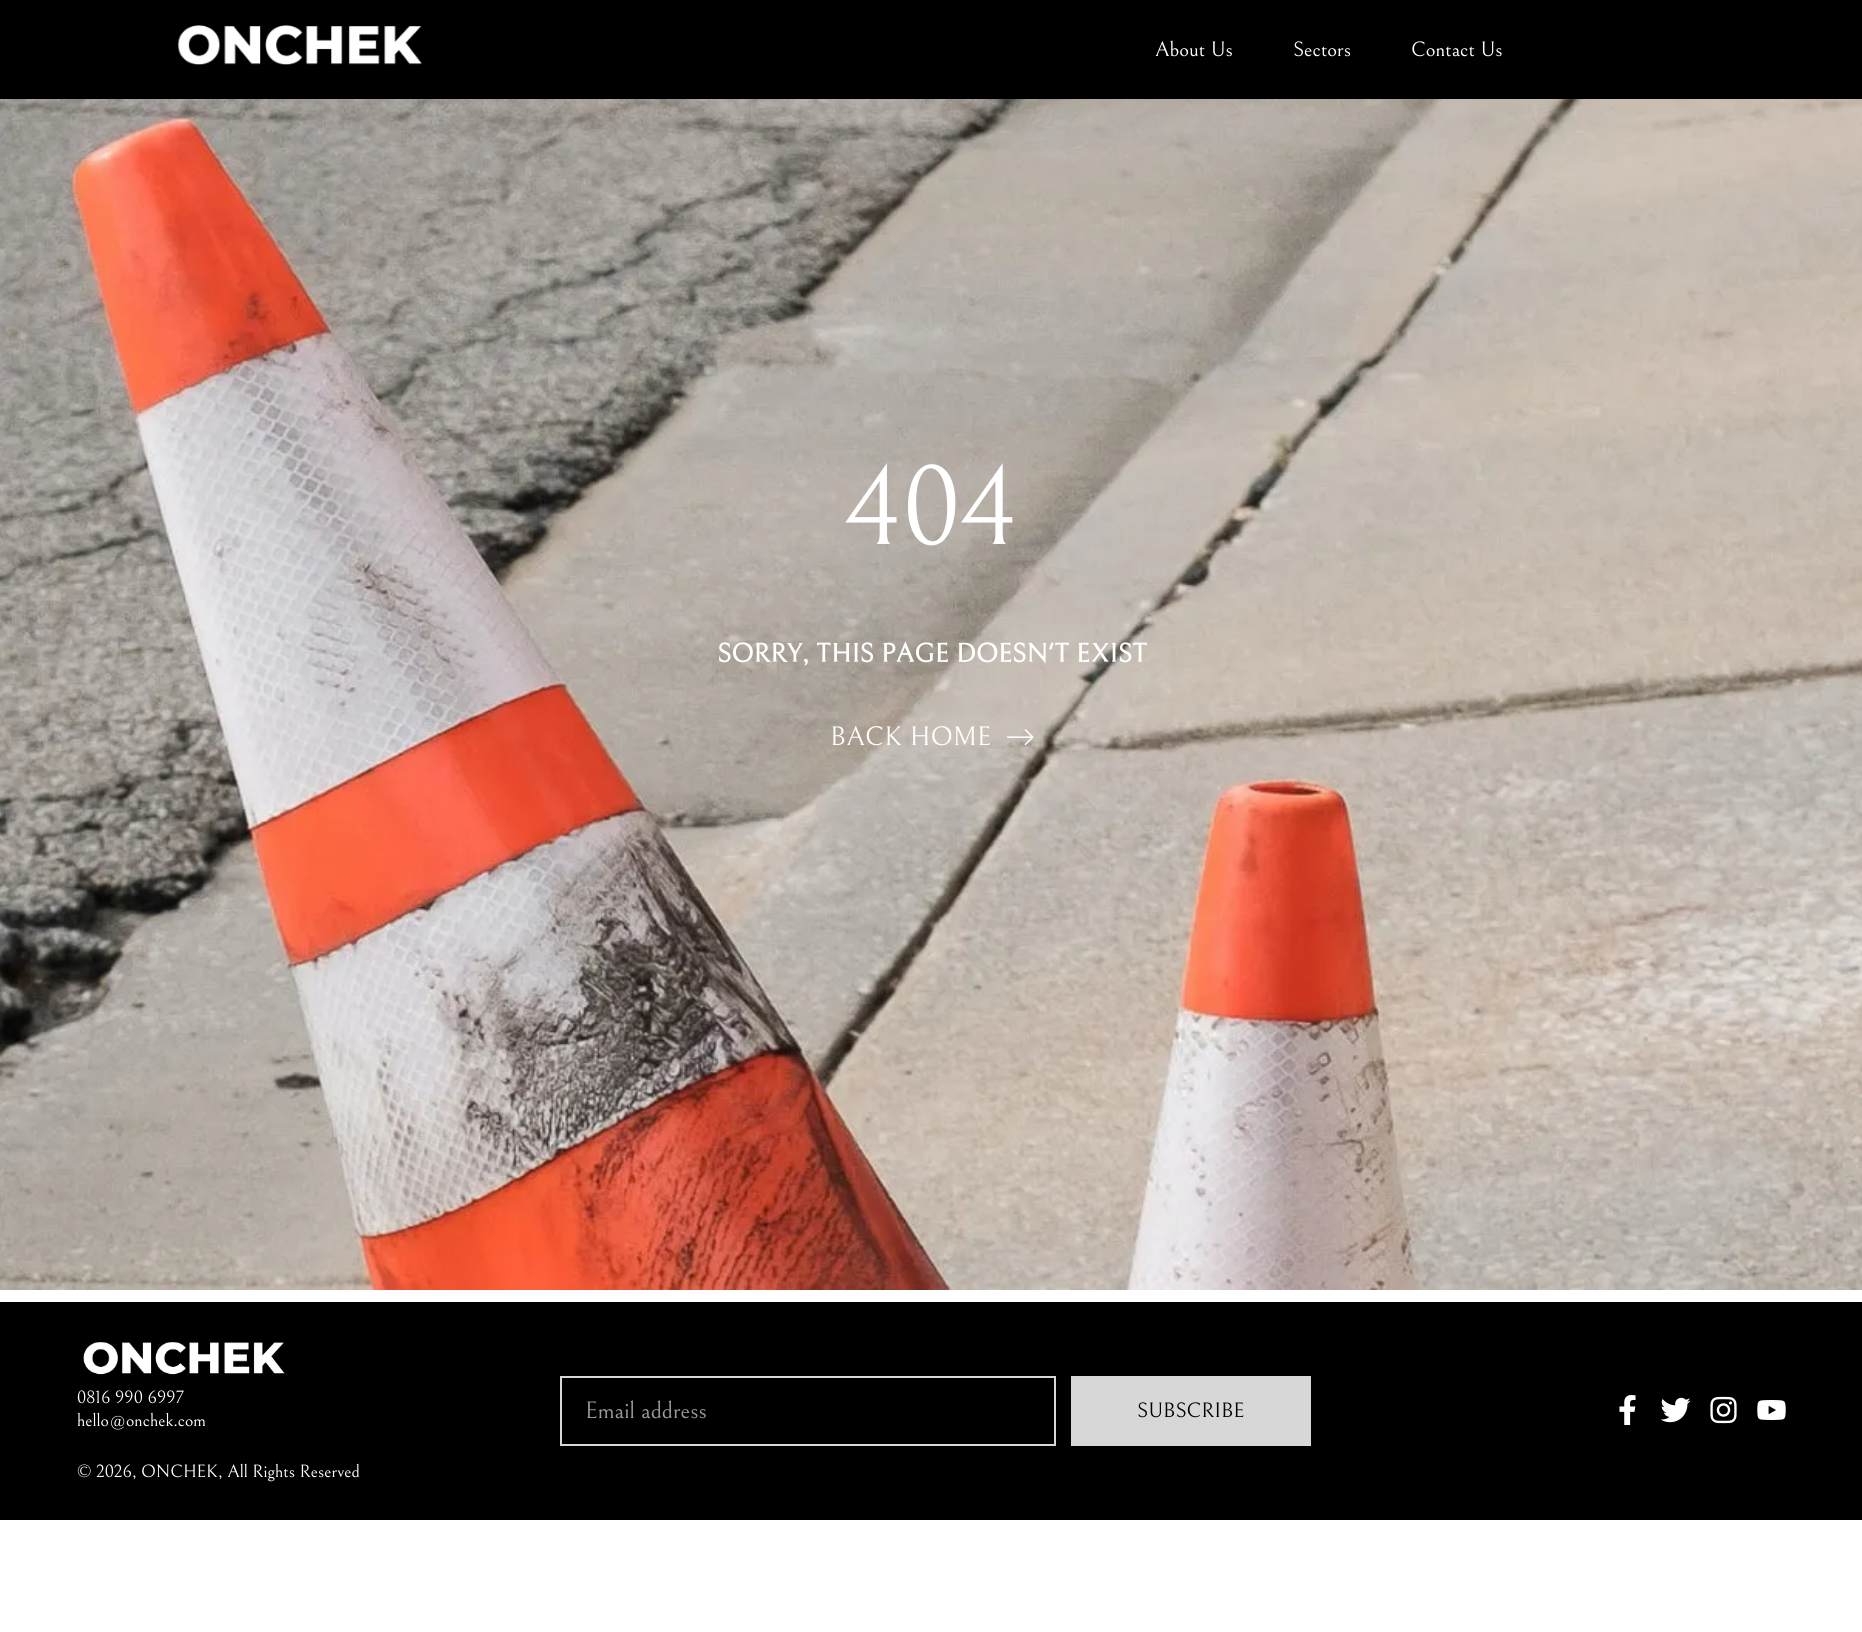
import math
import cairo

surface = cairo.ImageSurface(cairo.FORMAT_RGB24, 1862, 1632)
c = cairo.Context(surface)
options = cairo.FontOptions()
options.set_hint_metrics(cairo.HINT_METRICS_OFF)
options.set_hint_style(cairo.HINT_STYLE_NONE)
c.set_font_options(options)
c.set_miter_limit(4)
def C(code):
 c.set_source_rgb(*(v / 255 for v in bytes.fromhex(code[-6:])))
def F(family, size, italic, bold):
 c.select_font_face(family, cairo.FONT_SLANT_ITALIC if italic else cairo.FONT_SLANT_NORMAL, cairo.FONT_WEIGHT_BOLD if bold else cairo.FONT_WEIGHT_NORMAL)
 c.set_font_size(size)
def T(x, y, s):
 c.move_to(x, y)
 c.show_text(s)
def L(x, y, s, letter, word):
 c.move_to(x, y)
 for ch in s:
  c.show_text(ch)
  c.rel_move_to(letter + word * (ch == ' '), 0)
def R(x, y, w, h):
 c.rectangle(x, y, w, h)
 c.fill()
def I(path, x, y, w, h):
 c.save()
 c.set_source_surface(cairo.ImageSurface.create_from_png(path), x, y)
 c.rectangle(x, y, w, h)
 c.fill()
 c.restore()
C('ffffff')
c.paint()
C('000000')
R(0,0,1862,99)
I('1.png',177,25,245,40)
F('Bellefair',21,0,0)
C('ffffff')
T(1155,56,'About Us')
T(1293,56,'Sectors')
T(1411,56,'Contact Us')
I('2.png',0,99,1862,1191)
F('Bellefair',114,0,0)
T(845,544,'404')
F('Bellefair',27,0,1)
T(717,662,'SORRY, THIS PAGE DOESN\'T EXIST')
F('Bellefair',27,0,0)
L(830,745,'BACK HOME',.25,0)
I('3.png',1007,729,27,17)
C('000000')
R(0,1302,1862,218)
I('4.png',83,1342,202,33)
F('Bellefair',18,0,0)
C('ffffff')
T(77,1403,'0816 990 6997')
T(77,1426,'hello@onchek.com')
T(77,1477,'© 2026, ONCHEK, All Rights Reserved')
c.rectangle(561,1377,494,68)
C('d7d7d7')
c.stroke()
F('Bellefair',24,0,0)
C('999999')
T(585,1418,'Email address')
C('d7d7d7')
R(1071,1376,240,70)
F('Bellefair',21,0,0)
C('000000')
T(1137,1417,'SUBSCRIBE')
I('5.png',1619,1395,17,30)
I('6.png',1661,1397,30,26)
I('7.png',1710,1396,27,28)
I('8.png',1757,1400,29,20)
surface.write_to_png('o.png')
